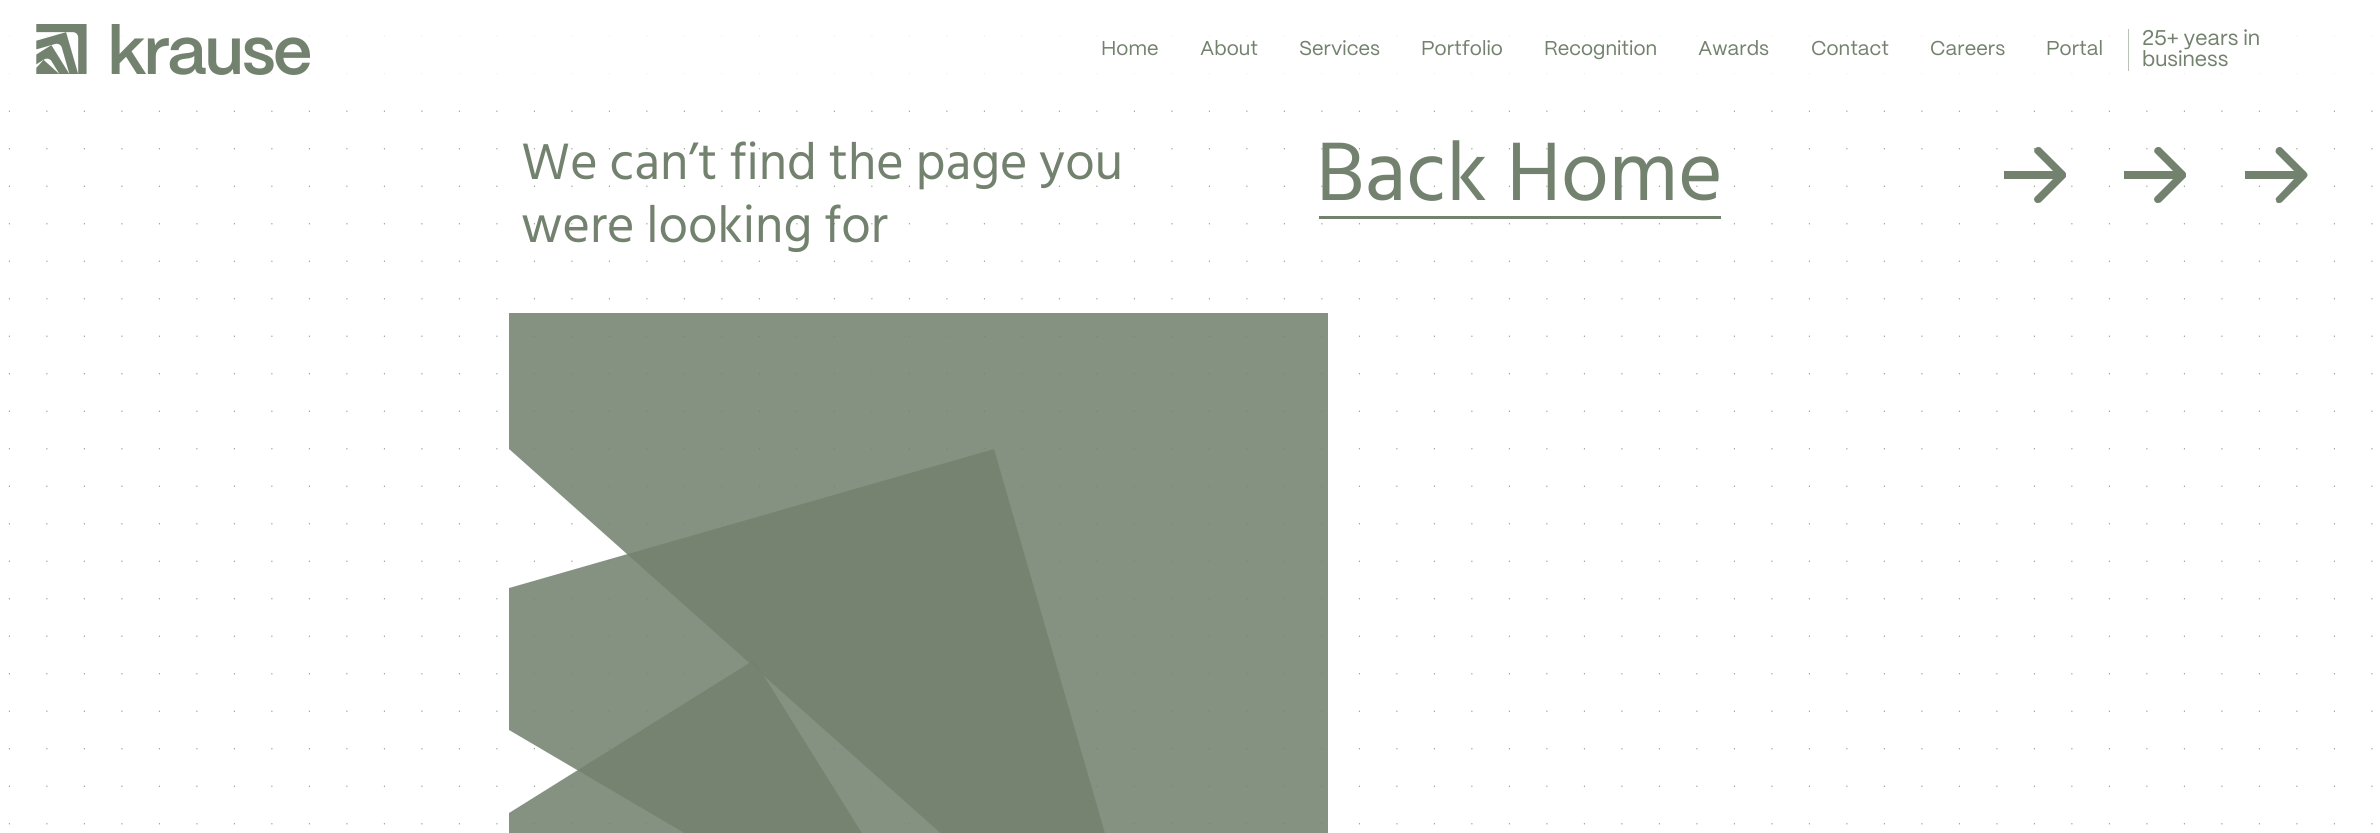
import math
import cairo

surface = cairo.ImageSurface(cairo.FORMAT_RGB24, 2380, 833)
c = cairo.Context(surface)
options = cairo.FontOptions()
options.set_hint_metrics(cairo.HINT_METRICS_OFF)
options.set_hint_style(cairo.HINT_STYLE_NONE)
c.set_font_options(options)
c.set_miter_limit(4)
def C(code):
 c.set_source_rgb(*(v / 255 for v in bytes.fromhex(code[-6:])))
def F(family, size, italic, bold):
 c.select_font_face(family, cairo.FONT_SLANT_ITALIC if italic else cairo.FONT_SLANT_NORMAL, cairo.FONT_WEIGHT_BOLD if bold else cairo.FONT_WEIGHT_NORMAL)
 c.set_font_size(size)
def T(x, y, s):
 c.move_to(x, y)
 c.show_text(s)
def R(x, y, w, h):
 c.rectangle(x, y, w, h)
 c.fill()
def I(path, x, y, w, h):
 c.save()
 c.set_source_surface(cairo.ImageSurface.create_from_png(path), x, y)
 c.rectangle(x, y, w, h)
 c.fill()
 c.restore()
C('ffffff')
c.paint()
c.new_path()
c.move_to(9.4,36.2)
c.line_to(2372.1,36.2)
C('e7eae6')
c.set_line_width(1.2)
c.set_line_cap(cairo.LINE_CAP_ROUND)
c.set_dash([0,37.5])
c.stroke()
c.new_path()
c.move_to(9.4,73.8)
c.line_to(2372.1,73.8)
c.stroke()
c.new_path()
c.move_to(9.4,111.2)
c.line_to(2372.1,111.2)
C('73826e')
c.stroke()
c.new_path()
c.move_to(9.4,148.8)
c.line_to(2372.1,148.8)
c.stroke()
c.new_path()
c.move_to(9.4,186.2)
c.line_to(2372.1,186.2)
c.stroke()
c.new_path()
c.move_to(9.4,223.8)
c.line_to(2372.1,223.8)
c.stroke()
c.new_path()
c.move_to(9.4,261.2)
c.line_to(2372.1,261.2)
c.stroke()
c.new_path()
c.move_to(9.4,298.8)
c.line_to(2372.1,298.8)
c.stroke()
c.new_path()
c.move_to(9.4,336.2)
c.line_to(2372.1,336.2)
c.stroke()
c.new_path()
c.move_to(9.4,373.8)
c.line_to(2372.1,373.8)
c.stroke()
c.new_path()
c.move_to(9.4,411.2)
c.line_to(2372.1,411.2)
c.stroke()
c.new_path()
c.move_to(9.4,448.8)
c.line_to(2372.1,448.8)
c.stroke()
c.new_path()
c.move_to(9.4,486.2)
c.line_to(2372.1,486.2)
c.stroke()
c.new_path()
c.move_to(9.4,523.8)
c.line_to(2372.1,523.8)
c.stroke()
c.new_path()
c.move_to(9.4,561.2)
c.line_to(2372.1,561.2)
c.stroke()
c.new_path()
c.move_to(9.4,598.8)
c.line_to(2372.1,598.8)
c.stroke()
c.new_path()
c.move_to(9.4,636.2)
c.line_to(2372.1,636.2)
c.stroke()
c.new_path()
c.move_to(9.4,673.8)
c.line_to(2372.1,673.8)
c.stroke()
c.new_path()
c.move_to(9.4,711.2)
c.line_to(2372.1,711.2)
c.stroke()
c.new_path()
c.move_to(9.4,748.8)
c.line_to(2372.1,748.8)
c.stroke()
c.new_path()
c.move_to(9.4,786.2)
c.line_to(2372.1,786.2)
c.stroke()
c.new_path()
c.move_to(9.4,823.8)
c.line_to(2372.1,823.8)
c.stroke()
I('1.png',36,24,274,51)
F('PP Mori',20,0,0)
T(1101,55,'Home')
T(1200,55,'About')
T(1299,55,'Services')
T(1421,55,'Portfolio')
T(1544,55,'Recognition')
T(1698,55,'Awards')
T(1811,55,'Contact')
T(1930,55,'Careers')
T(2046,55,'Portal')
C('bac2b8')
R(2128,29,1,42)
F('PP Mori',21.25,0,0)
C('73826e')
T(2142,45,'25+ years in')
T(2142,66,'business')
F('Hind Siliguri',52.5,0,0)
T(521,179,'We can’t find the page you')
T(521,242,'were looking for')
R(1319,216,402,3)
F('Hind Siliguri',85,0,0)
T(1316,200,'Back Home')
c.save()
c.rectangle(2004,144,62,62)
c.clip()
c.set_fill_rule(cairo.FILL_RULE_EVEN_ODD)
c.new_path()
c.move_to(2041,148)
c.line_to(2065,172)
c.curve_to(2067,174,2067,176,2065,178)
c.line_to(2041,202)
c.curve_to(2040,203,2038,203,2037,203)
c.curve_to(2036,203,2035,202,2034,200)
c.curve_to(2034,199,2034,198,2035,197)
c.line_to(2053,179)
c.line_to(2004,179)
c.line_to(2004,171)
c.line_to(2053,171)
c.line_to(2035,153)
c.curve_to(2032,149,2038,145,2041,148)
c.close_path()
c.fill()
c.restore()
c.save()
c.rectangle(2124,144,62,62)
c.clip()
c.set_fill_rule(cairo.FILL_RULE_EVEN_ODD)
c.new_path()
c.move_to(2161,148)
c.line_to(2185,172)
c.curve_to(2187,174,2187,176,2185,178)
c.line_to(2161,202)
c.curve_to(2160,203,2158,203,2157,203)
c.curve_to(2156,203,2155,202,2154,200)
c.curve_to(2154,199,2154,198,2155,197)
c.line_to(2173,179)
c.line_to(2124,179)
c.line_to(2124,171)
c.line_to(2173,171)
c.line_to(2155,153)
c.curve_to(2152,149,2158,145,2161,148)
c.close_path()
c.fill()
c.restore()
c.set_fill_rule(cairo.FILL_RULE_EVEN_ODD)
c.new_path()
c.move_to(2282,148)
c.line_to(2306,172)
c.curve_to(2308,174,2308,176,2306,178)
c.line_to(2282,202)
c.curve_to(2281,203,2280,203,2278,203)
c.curve_to(2277,203,2276,202,2276,200)
c.curve_to(2275,199,2276,198,2277,197)
c.line_to(2294,179)
c.line_to(2245,179)
c.line_to(2245,171)
c.line_to(2294,171)
c.line_to(2276,153)
c.curve_to(2274,149,2279,145,2282,148)
c.close_path()
c.fill()
c.save()
c.set_fill_rule(cairo.FILL_RULE_WINDING)
c.rectangle(509,313,820,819)
c.clip()
c.set_source_rgba(0.451,0.506,0.431,0.86)
c.set_fill_rule(cairo.FILL_RULE_EVEN_ODD)
c.new_path()
c.move_to(509,449)
c.line_to(509,312)
c.line_to(1328,312)
c.line_to(1328,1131)
c.line_to(1275,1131)
c.fill()
c.restore()
c.set_source_rgba(0.451,0.506,0.431,0.86)
c.new_path()
c.move_to(509,730)
c.line_to(509,588)
c.line_to(994,449)
c.line_to(1191,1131)
c.fill()
c.new_path()
c.move_to(509,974)
c.line_to(509,813)
c.line_to(754,660)
c.line_to(1024,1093)
c.fill()
surface.write_to_png('o.png')
